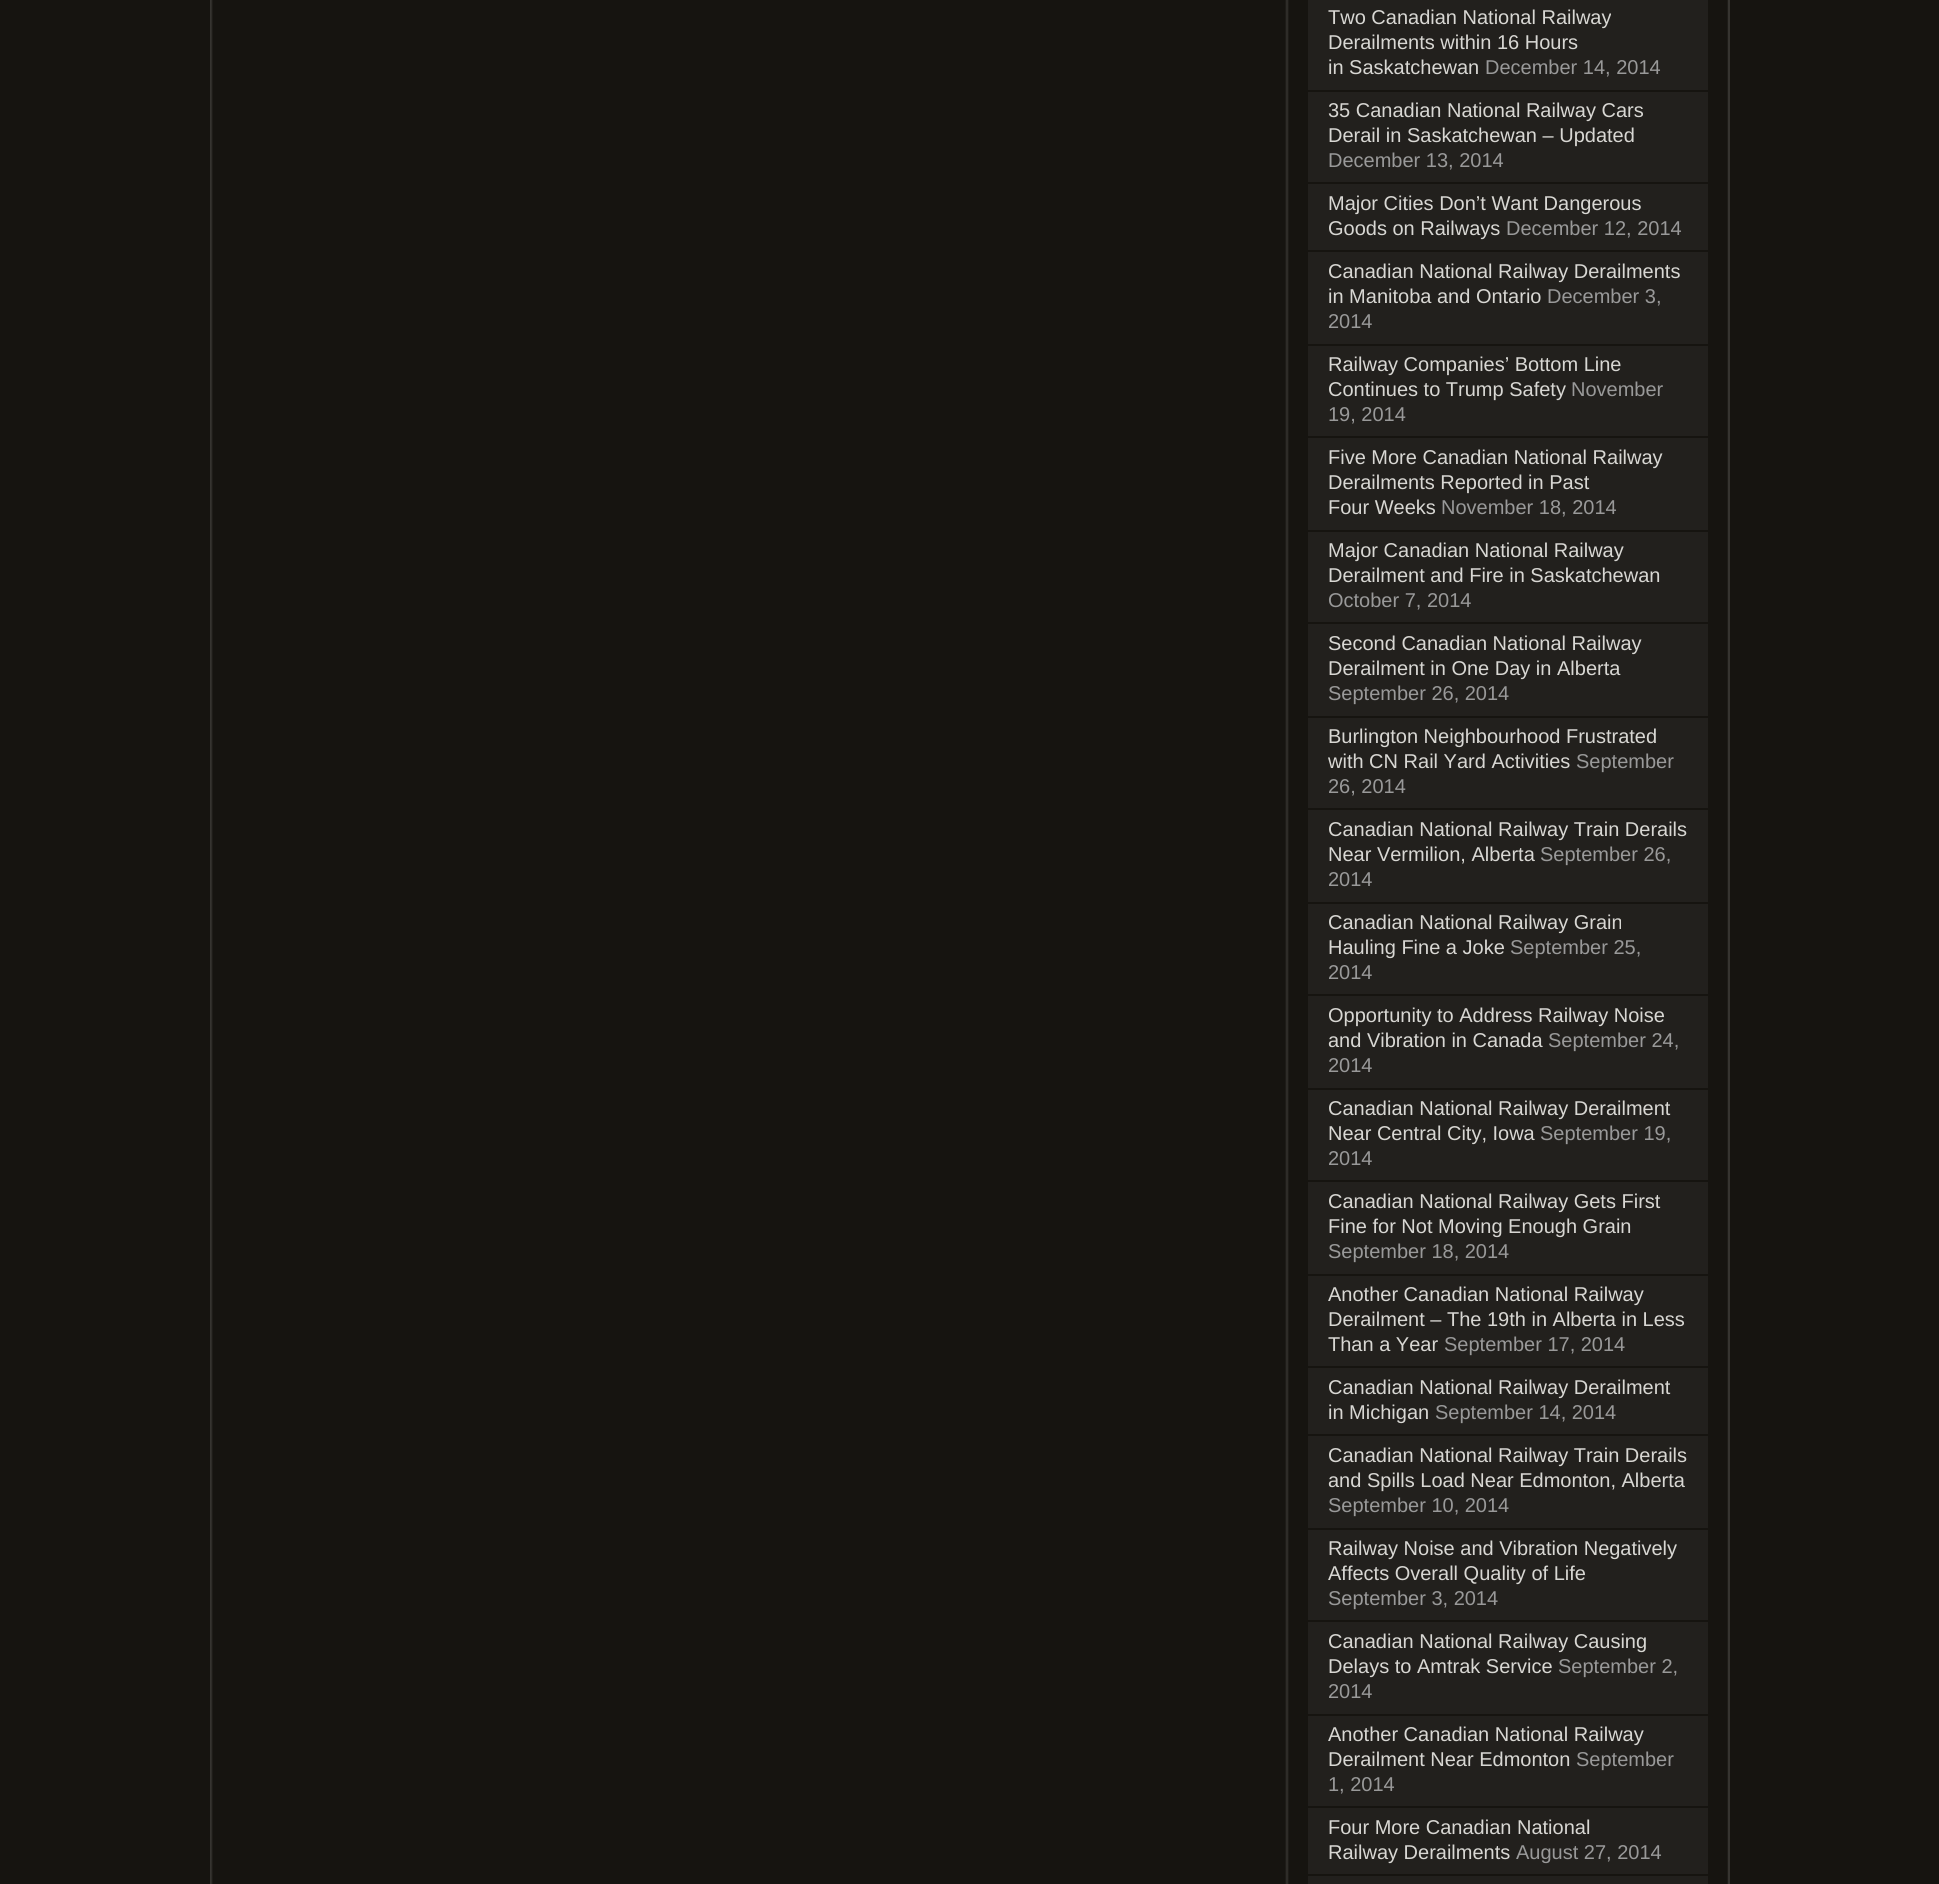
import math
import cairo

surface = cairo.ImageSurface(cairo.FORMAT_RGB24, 1939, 1884)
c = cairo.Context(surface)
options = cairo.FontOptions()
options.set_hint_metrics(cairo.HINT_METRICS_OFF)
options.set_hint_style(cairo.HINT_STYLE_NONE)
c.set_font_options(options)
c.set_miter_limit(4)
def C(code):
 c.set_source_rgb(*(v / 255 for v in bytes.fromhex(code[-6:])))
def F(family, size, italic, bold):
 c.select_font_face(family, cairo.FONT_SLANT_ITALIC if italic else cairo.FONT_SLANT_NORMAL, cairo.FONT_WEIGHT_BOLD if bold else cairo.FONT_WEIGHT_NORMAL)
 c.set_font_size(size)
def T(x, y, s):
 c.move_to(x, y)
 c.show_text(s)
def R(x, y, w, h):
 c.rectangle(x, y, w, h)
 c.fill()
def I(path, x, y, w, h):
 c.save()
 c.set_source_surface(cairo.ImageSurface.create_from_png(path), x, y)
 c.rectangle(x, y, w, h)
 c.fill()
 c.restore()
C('161410')
c.paint()
I('1.png',210,0,1518,1884)
C('363430')
R(1728,0,2,1884)
C('22201d')
R(1308,0,400,90)
F('Liberation Sans',20,0,0)
C('d8d7d3')
T(1328,24,'Two Canadian National Railway')
T(1328,49,'Derailments within 16 Hours')
T(1328,74,'in Saskatchewan')
C('999999')
T(1485,74,'December 14, 2014')
C('22201d')
R(1308,92,400,90)
C('d8d7d3')
T(1328,117,'35 Canadian National Railway Cars')
T(1328,142,'Derail in Saskatchewan – Updated')
C('999999')
T(1328,167,'December 13, 2014')
C('22201d')
R(1308,184,400,66)
C('d8d7d3')
T(1328,210,'Major Cities Don’t Want Dangerous')
T(1328,235,'Goods on Railways')
C('999999')
T(1506,235,'December 12, 2014')
C('22201d')
R(1308,252,400,92)
C('d8d7d3')
T(1328,278,'Canadian National Railway Derailments')
T(1328,303,'in Manitoba and Ontario')
C('999999')
T(1547,303,'December 3,')
T(1328,328,'2014')
C('22201d')
R(1308,346,400,90)
C('d8d7d3')
T(1328,371,'Railway Companies’ Bottom Line')
T(1328,396,'Continues to Trump Safety')
C('999999')
T(1571,396,'November')
T(1328,421,'19, 2014')
C('22201d')
R(1308,438,400,92)
C('d8d7d3')
T(1328,464,'Five More Canadian National Railway')
T(1328,489,'Derailments Reported in Past')
T(1328,514,'Four Weeks')
C('999999')
T(1441,514,'November 18, 2014')
C('22201d')
R(1308,532,400,90)
C('d8d7d3')
T(1328,557,'Major Canadian National Railway')
T(1328,582,'Derailment and Fire in Saskatchewan')
C('999999')
T(1328,607,'October 7, 2014')
C('22201d')
R(1308,624,400,92)
C('d8d7d3')
T(1328,650,'Second Canadian National Railway')
T(1328,675,'Derailment in One Day in Alberta')
C('999999')
T(1328,700,'September 26, 2014')
C('22201d')
R(1308,718,400,90)
C('d8d7d3')
T(1328,743,'Burlington Neighbourhood Frustrated')
T(1328,768,'with CN Rail Yard Activities')
C('999999')
T(1576,768,'September')
T(1328,793,'26, 2014')
C('22201d')
R(1308,810,400,92)
C('d8d7d3')
T(1328,836,'Canadian National Railway Train Derails')
T(1328,861,'Near Vermilion, Alberta')
C('999999')
T(1540,861,'September 26,')
T(1328,886,'2014')
C('22201d')
R(1308,904,400,90)
C('d8d7d3')
T(1328,929,'Canadian National Railway Grain')
T(1328,954,'Hauling Fine a Joke')
C('999999')
T(1510,954,'September 25,')
T(1328,979,'2014')
C('22201d')
R(1308,996,400,92)
C('d8d7d3')
T(1328,1022,'Opportunity to Address Railway Noise')
T(1328,1047,'and Vibration in Canada')
C('999999')
T(1548,1047,'September 24,')
T(1328,1072,'2014')
C('22201d')
R(1308,1090,400,90)
C('d8d7d3')
T(1328,1115,'Canadian National Railway Derailment')
T(1328,1140,'Near Central City, Iowa')
C('999999')
T(1540,1140,'September 19,')
T(1328,1165,'2014')
C('22201d')
R(1308,1182,400,92)
C('d8d7d3')
T(1328,1208,'Canadian National Railway Gets First')
T(1328,1233,'Fine for Not Moving Enough Grain')
C('999999')
T(1328,1258,'September 18, 2014')
C('22201d')
R(1308,1276,400,90)
C('d8d7d3')
T(1328,1301,'Another Canadian National Railway')
T(1328,1326,'Derailment – The 19th in Alberta in Less')
T(1328,1351,'Than a Year')
C('999999')
T(1444,1351,'September 17, 2014')
C('22201d')
R(1308,1368,400,66)
C('d8d7d3')
T(1328,1394,'Canadian National Railway Derailment')
T(1328,1419,'in Michigan')
C('999999')
T(1435,1419,'September 14, 2014')
C('22201d')
R(1308,1436,400,92)
C('d8d7d3')
T(1328,1462,'Canadian National Railway Train Derails')
T(1328,1487,'and Spills Load Near Edmonton, Alberta')
C('999999')
T(1328,1512,'September 10, 2014')
C('22201d')
R(1308,1530,400,90)
C('d8d7d3')
T(1328,1555,'Railway Noise and Vibration Negatively')
T(1328,1580,'Affects Overall Quality of Life')
C('999999')
T(1328,1605,'September 3, 2014')
C('22201d')
R(1308,1622,400,92)
C('d8d7d3')
T(1328,1648,'Canadian National Railway Causing')
T(1328,1673,'Delays to Amtrak Service')
C('999999')
T(1558,1673,'September 2,')
T(1328,1698,'2014')
C('22201d')
R(1308,1716,400,90)
C('d8d7d3')
T(1328,1741,'Another Canadian National Railway')
T(1328,1766,'Derailment Near Edmonton')
C('999999')
T(1576,1766,'September')
T(1328,1791,'1, 2014')
C('22201d')
R(1308,1808,400,66)
C('d8d7d3')
T(1328,1834,'Four More Canadian National')
T(1328,1859,'Railway Derailments')
C('999999')
T(1516,1859,'August 27, 2014')
C('22201d')
R(1308,1876,400,8)
surface.write_to_png('o.png')
